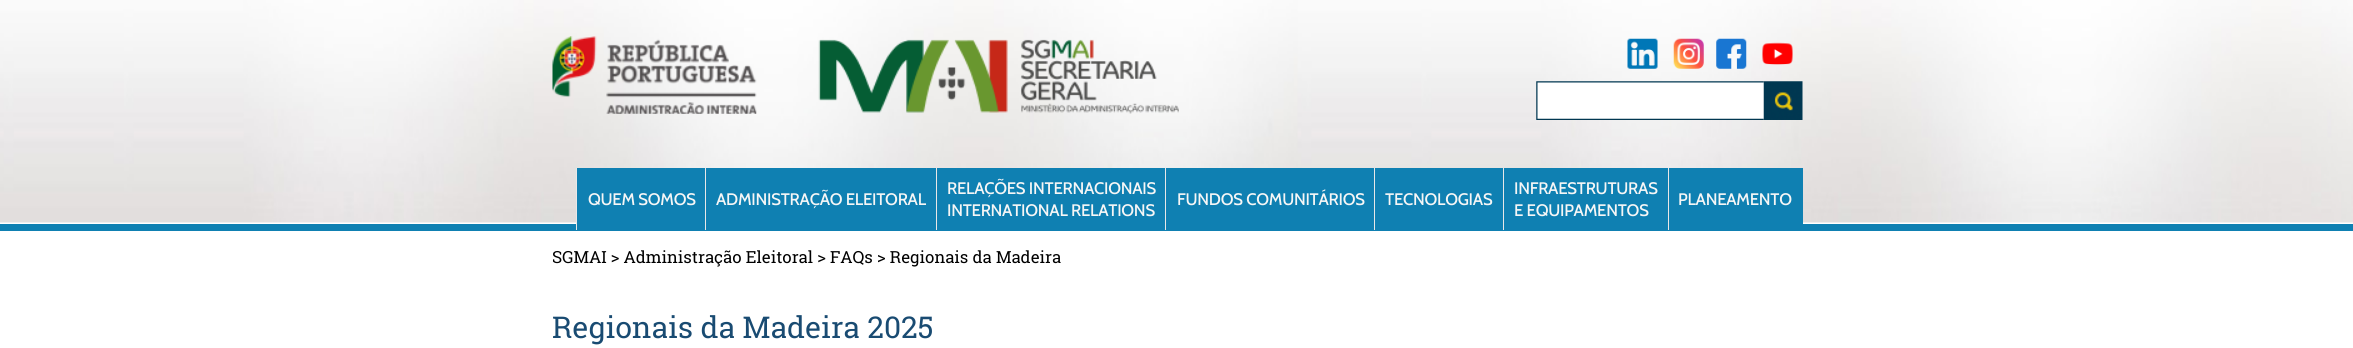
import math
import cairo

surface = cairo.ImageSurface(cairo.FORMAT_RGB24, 2353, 348)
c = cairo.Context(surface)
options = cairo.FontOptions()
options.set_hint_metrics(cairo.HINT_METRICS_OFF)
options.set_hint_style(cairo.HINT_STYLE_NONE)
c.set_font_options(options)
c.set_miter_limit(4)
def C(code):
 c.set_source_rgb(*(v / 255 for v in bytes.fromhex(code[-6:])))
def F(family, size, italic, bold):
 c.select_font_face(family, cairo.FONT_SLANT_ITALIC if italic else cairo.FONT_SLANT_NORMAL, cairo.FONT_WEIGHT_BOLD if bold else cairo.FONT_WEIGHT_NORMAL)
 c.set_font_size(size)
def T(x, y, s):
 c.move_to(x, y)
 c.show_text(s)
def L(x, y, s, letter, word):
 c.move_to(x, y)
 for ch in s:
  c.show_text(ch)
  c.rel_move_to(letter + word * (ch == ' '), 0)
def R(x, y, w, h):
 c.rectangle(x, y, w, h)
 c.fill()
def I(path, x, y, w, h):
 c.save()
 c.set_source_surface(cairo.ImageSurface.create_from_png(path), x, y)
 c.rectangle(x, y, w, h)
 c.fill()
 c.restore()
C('ffffff')
c.paint()
I('1.png',0,0,2353,223)
C('0f80b2')
R(0,224,2353,7)
I('2.png',552,36,205,78)
I('3.png',818,39,361,75)
I('4.png',1627,38,31,31)
I('5.png',1673,38,31,31)
I('6.png',1716,38,31,31)
I('7.png',1762,42,31,23)
I('8.png',1536,81,228,39)
I('9.png',1763,81,40,39)
R(577,168,128,56)
C('e8e8e8')
R(576,168,1,62)
F('Cabin Medium',16.7,0,0)
C('f6f6f6')
L(588,205,'QUEM SOMOS',-.25,0)
C('0f80b2')
R(706,168,230,56)
C('e8e8e8')
R(705,168,1,62)
C('f6f6f6')
L(716,205,'ADMINISTRAÇÃO ELEITORAL',-.25,0)
C('0f80b2')
R(937,168,228,56)
C('e8e8e8')
R(936,168,1,62)
C('f6f6f6')
L(947,194,'RELAÇÕES INTERNACIONAIS',-.25,0)
L(947,216,'INTERNATIONAL RELATIONS',-.25,0)
C('0f80b2')
R(1166,168,208,56)
C('e8e8e8')
R(1165,168,1,62)
C('f6f6f6')
L(1177,205,'FUNDOS COMUNITÁRIOS',-.25,0)
C('0f80b2')
R(1375,168,128,56)
C('e8e8e8')
R(1374,168,1,62)
C('f6f6f6')
L(1385,205,'TECNOLOGIAS',-.25,0)
C('0f80b2')
R(1504,168,164,56)
C('e8e8e8')
R(1503,168,1,62)
C('f6f6f6')
L(1514,194,'INFRAESTRUTURAS',-.25,0)
L(1514,216,'E EQUIPAMENTOS',-.25,0)
C('0f80b2')
R(1669,168,134,56)
C('e8e8e8')
R(1668,168,1,62)
C('f6f6f6')
L(1678,205,'PLANEAMENTO',-.25,0)
F('Roboto Slab',16.7,0,0)
C('000000')
T(552,263,'SGMAI > Administração Eleitoral > FAQs > Regionais da Madeira')
F('Roboto Slab',30,0,0)
C('194b72')
T(552,338,'Regionais da Madeira 2025')
surface.write_to_png('o.png')
